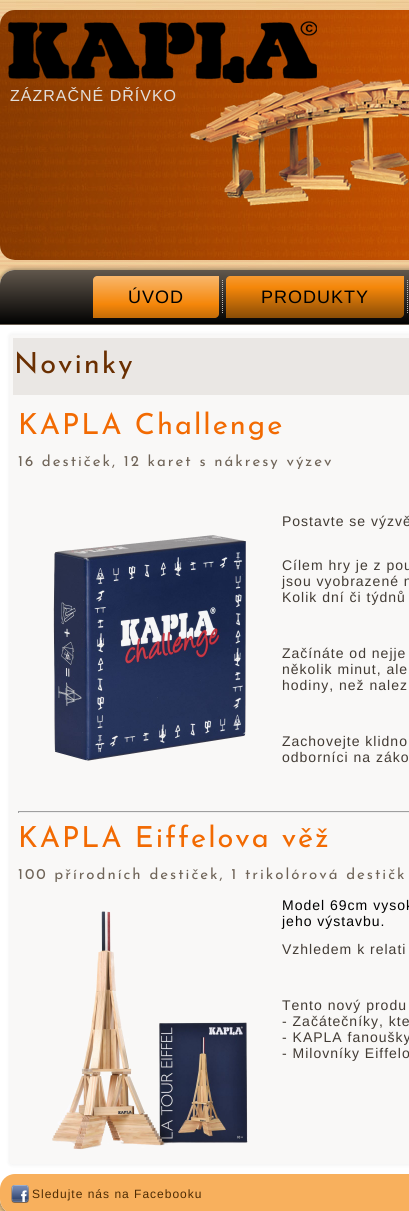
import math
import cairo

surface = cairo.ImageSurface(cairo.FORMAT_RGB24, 409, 1211)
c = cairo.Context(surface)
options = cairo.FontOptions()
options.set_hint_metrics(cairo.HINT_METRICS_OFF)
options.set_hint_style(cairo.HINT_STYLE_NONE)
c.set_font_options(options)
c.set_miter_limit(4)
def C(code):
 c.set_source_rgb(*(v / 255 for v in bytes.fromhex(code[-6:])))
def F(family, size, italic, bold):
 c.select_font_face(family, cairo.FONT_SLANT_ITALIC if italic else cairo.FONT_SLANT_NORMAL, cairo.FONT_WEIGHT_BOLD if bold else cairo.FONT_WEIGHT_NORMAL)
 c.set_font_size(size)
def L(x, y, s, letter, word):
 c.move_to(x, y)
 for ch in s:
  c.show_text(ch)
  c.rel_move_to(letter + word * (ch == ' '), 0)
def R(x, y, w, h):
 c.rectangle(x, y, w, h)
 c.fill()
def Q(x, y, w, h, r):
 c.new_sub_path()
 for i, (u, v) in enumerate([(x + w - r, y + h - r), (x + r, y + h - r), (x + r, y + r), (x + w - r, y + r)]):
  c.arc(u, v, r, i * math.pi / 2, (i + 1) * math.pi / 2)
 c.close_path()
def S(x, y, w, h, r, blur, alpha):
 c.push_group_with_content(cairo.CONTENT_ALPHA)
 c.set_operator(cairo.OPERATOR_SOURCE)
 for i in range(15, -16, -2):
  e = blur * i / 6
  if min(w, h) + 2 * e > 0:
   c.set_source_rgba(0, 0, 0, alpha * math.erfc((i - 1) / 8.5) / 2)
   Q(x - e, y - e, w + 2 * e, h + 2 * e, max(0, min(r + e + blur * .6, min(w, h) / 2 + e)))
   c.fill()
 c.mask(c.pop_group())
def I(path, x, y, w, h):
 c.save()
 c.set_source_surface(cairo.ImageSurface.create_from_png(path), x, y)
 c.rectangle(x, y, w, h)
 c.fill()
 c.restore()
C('ffffff')
c.paint()
I('1.png',0,0,409,1211)
I('2.png',0,10,409,250)
F('Arimo',16,0,0)
C('e2deda')
L(10,101,'ZÁZRAČNÉ DŘÍVKO',1,0)
C('000000')
S(-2,268,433,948,17,1.5,.25)
C('ffffff')
Q(0,270,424,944,15)
c.fill()
gradient = cairo.LinearGradient(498,270,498,325)
gradient.add_color_stop_rgba(0,0.38,0.341,0.298,1)
gradient.add_color_stop_rgba(1,0,0,0,1)
c.set_source(gradient)
c.new_path()
c.move_to(15,270)
c.line_to(409,270)
c.curve_to(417.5,270,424,276.5,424,285)
c.line_to(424,325)
c.line_to(0,325)
c.line_to(0,285)
c.curve_to(0,276.5,6.5,270,15,270)
c.close_path()
c.fill()
C('675d51')
R(0,324,409,1)
gradient = cairo.LinearGradient(156,276,156,318)
gradient.add_color_stop_rgba(0,0.976,0.718,0.424,1)
gradient.add_color_stop_rgba(.67,0.961,0.529,0.039,1)
gradient.add_color_stop_rgba(1,0.769,0.424,0.031,1)
c.set_source(gradient)
c.new_path()
c.move_to(97,276)
c.line_to(219,276)
c.line_to(219,314)
c.curve_to(219,316,217,318,215,318)
c.line_to(93,318)
c.line_to(93,280)
c.curve_to(93,278,95,276,97,276)
c.close_path()
c.fill()
F('Arimo',18,0,0)
C('000000')
L(128,303,'ÚVOD',1,0)
I('3.png',222,280,1,33)
gradient = cairo.LinearGradient(315,276,315,318)
gradient.add_color_stop_rgba(0,0.965,0.604,0.192,1)
gradient.add_color_stop_rgba(.27,0.961,0.529,0.039,1)
gradient.add_color_stop_rgba(1,0.537,0.298,0.024,1)
c.set_source(gradient)
c.new_path()
c.move_to(230,276)
c.line_to(404,276)
c.line_to(404,314)
c.curve_to(404,316,402,318,400,318)
c.line_to(226,318)
c.line_to(226,280)
c.curve_to(226,278,228,276,230,276)
c.close_path()
c.fill()
C('000000')
L(261,303,'PRODUKTY',1,0)
I('3.png',407,280,1,33)
C('000000')
S(8,333,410,833,4,1.5,.04)
C('f9f8f7')
Q(10,335,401,829,2)
c.fill()
C('eae7e4')
R(13,338,396,57)
F('Josefin Sans Thin',29,0,0)
C('6a2f01')
L(14,373,'Novinky',2,0)
C('f26a02')
L(18,434,'KAPLA Challenge',2,0)
F('Josefin Sans Thin',15,0,0)
C('6f6458')
L(18,466,'16 destiček, 12 karet s nákresy výzev',2,0)
F('Arimo',14,0,0)
C('423b34')
L(282,526,'Postavte se výzvě',1,0)
I('4.png',53,535,193,226)
L(282,570,'Cílem hry je z pou',1,0)
L(282,586,'jsou vyobrazené n',1,0)
L(282,602,'Kolik dní či týdnů',1,0)
L(282,658,'Začínáte od nejje',1,0)
L(282,674,'několik minut, ale',1,0)
L(282,690,'hodiny, než nalez',1,0)
L(282,746,'Zachovejte klidno',1,0)
L(282,762,'odborníci na záko',1,0)
C('9f9f9f')
R(18,811,391,1)
C('eeeeee')
R(18,812,391,1)
C('9f9f9f')
R(18,811,1,2)
F('Josefin Sans Thin',29,0,0)
C('f26a02')
L(18,847,'KAPLA Eiffelova věž',2,0)
F('Josefin Sans Thin',15,0,0)
C('6f6458')
L(18,879,'100 přírodních destiček, 1 trikolórová destičk',2,0)
I('5.png',52,911,196,239)
F('Arimo',14,0,0)
C('000000')
L(282,910,'Model 69cm vysok',1,0)
L(282,926,'jeho výstavbu.',1,0)
C('423b34')
L(282,954,'Vzhledem k relati',1,0)
L(282,1010,'Tento nový produ',1,0)
L(282,1026,'- Začátečníky, kte',1,0)
L(282,1042,'- KAPLA fanoušky',1,0)
L(282,1058,'- Milovníky Eiffelo',1,0)
C('f8b05d')
Q(0,1174,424,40,15)
c.fill()
I('6.png',11,1185,18,18)
F('Arimo',12,0,0)
C('4e2b03')
L(32,1198,'Sledujte nás na Facebooku',1,0)
surface.write_to_png('o.png')
